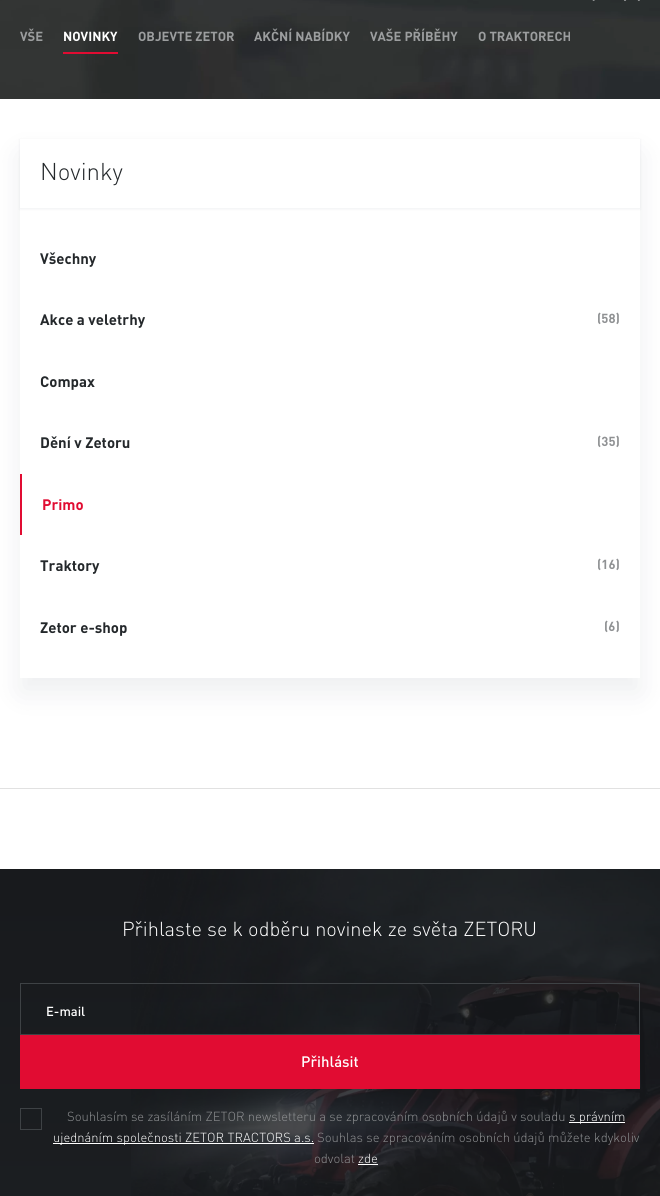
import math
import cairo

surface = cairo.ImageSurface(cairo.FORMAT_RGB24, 660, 1196)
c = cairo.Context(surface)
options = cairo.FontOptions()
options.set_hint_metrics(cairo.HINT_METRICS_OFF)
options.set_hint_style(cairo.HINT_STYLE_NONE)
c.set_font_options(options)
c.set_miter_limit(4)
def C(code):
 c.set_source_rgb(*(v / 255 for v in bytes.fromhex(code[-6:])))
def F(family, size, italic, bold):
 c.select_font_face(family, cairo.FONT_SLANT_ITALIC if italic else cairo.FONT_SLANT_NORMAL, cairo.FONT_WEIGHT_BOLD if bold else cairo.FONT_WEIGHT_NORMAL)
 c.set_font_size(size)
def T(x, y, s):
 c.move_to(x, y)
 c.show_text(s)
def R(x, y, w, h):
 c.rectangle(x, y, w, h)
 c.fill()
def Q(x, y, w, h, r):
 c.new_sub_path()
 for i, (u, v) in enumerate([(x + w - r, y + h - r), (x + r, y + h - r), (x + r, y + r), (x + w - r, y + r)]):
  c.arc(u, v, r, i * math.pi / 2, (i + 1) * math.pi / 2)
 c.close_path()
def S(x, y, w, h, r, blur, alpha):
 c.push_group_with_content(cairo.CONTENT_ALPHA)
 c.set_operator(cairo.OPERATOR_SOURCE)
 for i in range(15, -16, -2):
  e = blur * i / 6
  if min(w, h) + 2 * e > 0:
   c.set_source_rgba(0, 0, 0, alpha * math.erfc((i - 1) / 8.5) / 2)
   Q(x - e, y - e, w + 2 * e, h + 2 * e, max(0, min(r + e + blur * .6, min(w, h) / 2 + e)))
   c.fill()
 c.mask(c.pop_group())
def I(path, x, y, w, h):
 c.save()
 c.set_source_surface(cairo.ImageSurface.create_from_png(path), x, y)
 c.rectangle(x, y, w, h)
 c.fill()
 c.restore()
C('ffffff')
c.paint()
I('1.png',0,0,660,99)
I('2.png',592,0,3,1)
I('3.png',624,0,16,1)
F('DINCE',13,0,1)
C('9c9e9f')
T(20,41,'VŠE')
C('e10c32')
R(63,52,55,2)
C('ffffff')
T(63,41,'NOVINKY')
C('9c9e9f')
T(138,41,'OBJEVTE ZETOR')
T(254,41,'AKČNÍ NABÍDKY')
T(370,41,'VAŠE PŘÍBĚHY')
T(478,41,'O TRAKTORECH')
C('e1e1e1')
R(0,788,660,1)
c.save()
c.set_fill_rule(cairo.FILL_RULE_EVEN_ODD)
c.new_path()
c.move_to(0,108)
c.line_to(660,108)
c.line_to(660,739)
c.line_to(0,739)
c.close_path()
c.move_to(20,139)
c.line_to(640,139)
c.line_to(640,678)
c.line_to(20,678)
c.close_path()
c.clip()
C('00102d')
S(20,154,620,539,0,15,.07)
c.restore()
c.save()
c.set_fill_rule(cairo.FILL_RULE_EVEN_ODD)
c.new_path()
c.move_to(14,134)
c.line_to(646,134)
c.line_to(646,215)
c.line_to(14,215)
c.close_path()
c.move_to(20,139)
c.line_to(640,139)
c.line_to(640,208)
c.line_to(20,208)
c.close_path()
c.clip()
C('00102d')
S(20,140,620,69,0,1.5,.07)
c.restore()
F('DINCE Light',24,0,0)
C('24282b')
T(40,180,'Novinky')
F('DINCE',15,0,1)
T(40,264,'Všechny')
T(40,325,'Akce a veletrhy')
F('DINCE',13,0,1)
C('8f9193')
T(597,323,'(58)')
F('DINCE',15,0,1)
C('24282b')
T(40,387,'Compax')
T(40,448,'Dění v Zetoru')
F('DINCE',13,0,1)
C('8f9193')
T(597,446,'(35)')
C('e10c32')
R(20,474,2,61)
F('DINCE',15,0,1)
T(42,510,'Primo')
C('24282b')
T(40,571,'Traktory')
F('DINCE',13,0,1)
C('8f9193')
T(597,569,'(16)')
F('DINCE',15,0,1)
C('24282b')
T(40,633,'Zetor e-shop')
F('DINCE',13,0,1)
C('8f9193')
T(604,631,'(6)')
gradient = cairo.LinearGradient(330,869,330,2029)
gradient.add_color_stop_rgba(.01,0.094,0.102,0.114,1)
gradient.add_color_stop_rgba(1,0.141,0.157,0.169,1)
c.set_source(gradient)
R(0,869,660,327)
I('4.png',131,869,529,327)
F('DINCE Light',20,0,0)
C('ffffff')
T(122,936,'Přihlaste se k odběru novinek ze světa ZETORU')
c.rectangle(20.5,983.5,619,51)
C('3e4245')
c.set_line_width(1)
c.stroke()
F('DINCE Medium',13,0,0)
C('ffffff')
T(46,1016,'E-mail')
C('e10c32')
R(20,1035,620,54)
F('DINCE Medium',15,0,0)
C('ffffff')
T(301,1067,'Přihlásit')
c.rectangle(20.5,1108.5,21,21)
C('3e4245')
c.stroke()
F('DINCE Light',13,0,0)
C('8f9193')
T(67,1121,'Souhlasím se zasíláním ZETOR newsletteru a se zpracováním osobních údajů v souladu')
C('ffffff')
R(569,1122,56,1)
T(569,1121,'s právním')
R(53,1143,261,1)
T(53,1142,'ujednáním společnosti ZETOR TRACTORS a.s.')
C('8f9193')
T(317,1142,'Souhlas se zpracováním osobních údajů můžete kdykoliv')
T(314,1163,'odvolat')
C('ffffff')
T(358,1163,'zde')
R(358,1164,20,1)
surface.write_to_png('o.png')
